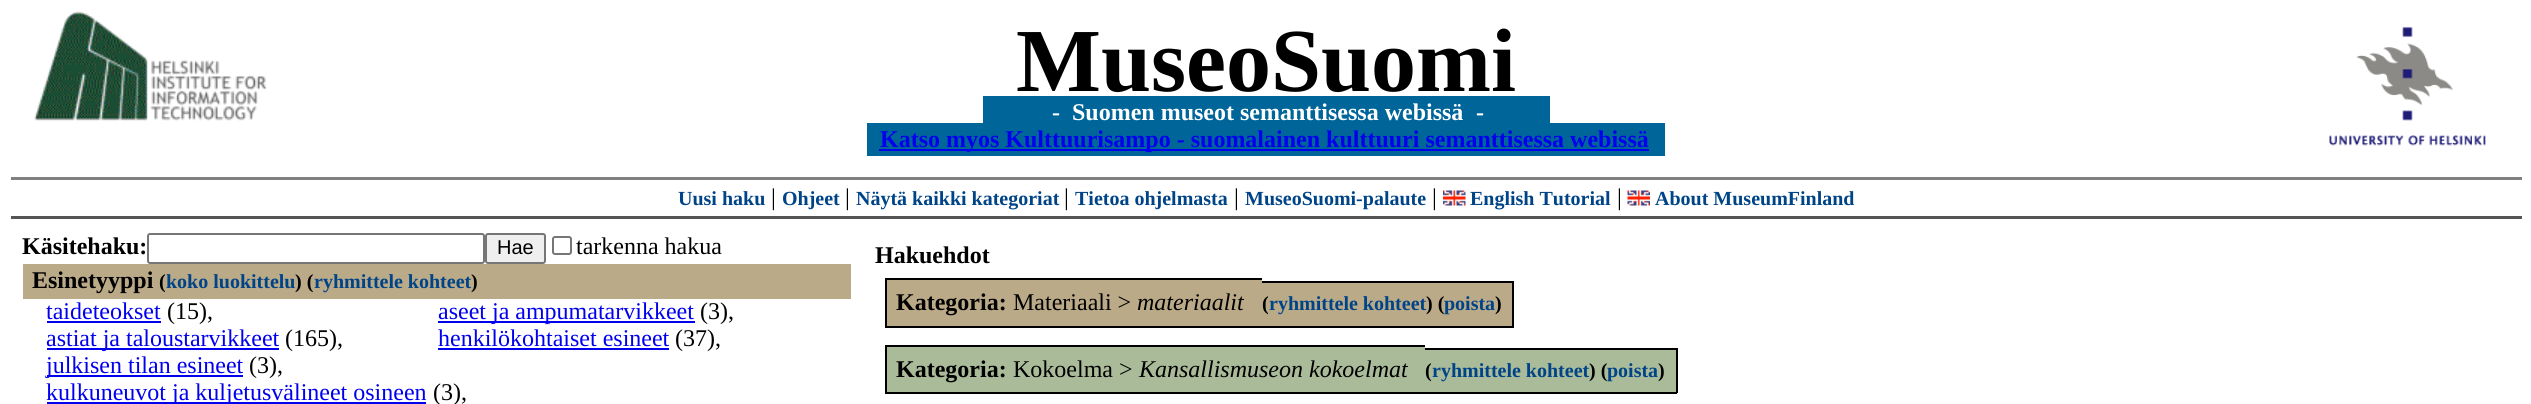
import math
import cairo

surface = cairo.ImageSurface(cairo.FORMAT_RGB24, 2531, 404)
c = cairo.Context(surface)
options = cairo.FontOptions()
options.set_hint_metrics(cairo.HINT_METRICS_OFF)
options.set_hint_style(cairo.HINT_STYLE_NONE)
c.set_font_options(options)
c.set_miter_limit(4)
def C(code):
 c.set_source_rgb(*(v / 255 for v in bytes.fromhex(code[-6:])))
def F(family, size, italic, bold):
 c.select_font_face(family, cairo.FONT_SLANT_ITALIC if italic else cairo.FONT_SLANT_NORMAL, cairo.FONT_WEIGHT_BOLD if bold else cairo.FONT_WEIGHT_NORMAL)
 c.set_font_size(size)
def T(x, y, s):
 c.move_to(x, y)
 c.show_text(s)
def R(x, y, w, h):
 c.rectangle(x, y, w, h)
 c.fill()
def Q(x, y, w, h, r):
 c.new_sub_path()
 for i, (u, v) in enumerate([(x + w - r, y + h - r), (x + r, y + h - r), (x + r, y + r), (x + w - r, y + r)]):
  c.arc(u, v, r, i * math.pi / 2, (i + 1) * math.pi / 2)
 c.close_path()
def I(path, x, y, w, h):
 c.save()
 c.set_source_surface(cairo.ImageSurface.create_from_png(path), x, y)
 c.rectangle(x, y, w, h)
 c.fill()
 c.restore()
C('ffffff')
c.paint()
I('1.png',34,11,233,110)
F('Liberation Serif',90,0,1)
C('000000')
T(1016,91,'MuseoSuomi')
I('2.png',2329,26,157,120)
C('006699')
R(983,96,567,27)
F('Liberation Serif',24,0,1)
C('ffffff')
T(1052,120,'-')
T(1072,120,'Suomen museot semanttisessa webissä')
T(1476,120,'-')
C('006699')
R(867,123,798,33)
C('0000ee')
R(879,149,770,2)
T(880,147,'Katso myos Kulttuurisampo - suomalainen kulttuuri semanttisessa webissä')
C('808080')
R(11,177,2511,3)
C('555555')
R(11,216,2511,3)
F('Liberation Serif',20,0,1)
C('004488')
T(678,205,'Uusi haku')
F('Liberation Serif',24,0,0)
C('000000')
T(771,205,'|')
F('Liberation Serif',20,0,1)
C('004488')
T(782,205,'Ohjeet')
F('Liberation Serif',24,0,0)
C('000000')
T(845,205,'|')
F('Liberation Serif',20,0,1)
C('004488')
T(856,205,'Näytä kaikki kategoriat')
F('Liberation Serif',24,0,0)
C('000000')
T(1064,205,'|')
F('Liberation Serif',20,0,1)
C('004488')
T(1075,205,'Tietoa ohjelmasta')
F('Liberation Serif',24,0,0)
C('000000')
T(1234,205,'|')
F('Liberation Serif',20,0,1)
C('004488')
T(1245,205,'MuseoSuomi-palaute')
F('Liberation Serif',24,0,0)
C('000000')
T(1432,205,'|')
I('3.png',1443,190,23,16)
F('Liberation Serif',20,0,1)
C('004488')
T(1470,205,'English Tutorial')
F('Liberation Serif',24,0,0)
C('000000')
T(1617,205,'|')
I('4.png',1627,190,23,16)
F('Liberation Serif',20,0,1)
C('004488')
T(1655,205,'About MuseumFinland')
F('Liberation Serif',24,0,1)
C('000000')
T(22,254,'Käsitehaku:')
Q(148,234,336,29,2)
C('767676')
c.stroke()
C('efefef')
Q(486,234,59,29,2)
c.fill_preserve()
C('767676')
c.stroke()
F('Liberation Sans',20,0,0)
C('000000')
T(497,254,'Hae')
Q(553,237,18,17,2)
C('767676')
c.stroke()
F('Liberation Serif',24,0,0)
C('000000')
T(576,254,'tarkenna hakua')
C('bbaa88')
R(23,264,828,35)
F('Liberation Serif',24,0,1)
C('000000')
T(32,288,'Esinetyyppi')
F('Liberation Serif',20,0,1)
T(159,288,'(')
C('004488')
T(166,288,'koko luokittelu')
C('000000')
T(295,288,') (')
C('004488')
T(314,288,'ryhmittele kohteet')
C('000000')
T(471,288,')')
F('Liberation Serif',24,0,0)
C('0000ee')
T(46,319,'taideteokset')
R(47,321,114,2)
C('000000')
T(167,319,'(15),')
C('0000ee')
R(438,321,257,2)
T(438,319,'aseet ja ampumatarvikkeet')
C('000000')
T(700,319,'(3),')
C('0000ee')
R(47,348,232,2)
T(46,346,'astiat ja taloustarvikkeet')
C('000000')
T(285,346,'(165),')
C('0000ee')
T(438,346,'henkilökohtaiset esineet')
R(438,348,231,2)
C('000000')
T(675,346,'(37),')
C('0000ee')
R(47,375,196,2)
T(46,373,'julkisen tilan esineet')
C('000000')
T(249,373,'(3),')
C('0000ee')
R(47,402,379,2)
T(46,400,'kulkuneuvot ja kuljetusvälineet osineen')
C('000000')
T(433,400,'(3),')
F('Liberation Serif',24,0,1)
T(875,263,'Hakuehdot')
C('bbaa88')
R(887,280,375,46)
C('000000')
T(896,310,'Kategoria:')
R(885,278,377,2)
R(885,326,377,2)
R(885,278,2,49)
F('Liberation Serif',24,0,0)
T(1013,310,'Materiaali >')
F('Liberation Serif',24,1,0)
T(1137,310,'materiaalit')
C('bbaa88')
R(1262,281,7,46)
F('Liberation Serif',20,0,1)
C('000000')
T(1262,310,'(')
R(1262,281,175,2)
R(1262,326,175,2)
C('bbaa88')
R(1269,283,168,43)
C('004488')
T(1269,310,'ryhmittele kohteet')
C('bbaa88')
R(1437,281,8,46)
C('000000')
T(1426,310,') (')
R(1437,281,77,2)
R(1437,326,59,2)
C('bbaa88')
R(1445,283,67,43)
C('004488')
T(1444,310,'poista')
C('000000')
T(1495,310,')')
R(1512,281,2,46)
R(1496,326,18,2)
C('aabb99')
R(887,347,538,45)
F('Liberation Serif',24,0,1)
C('000000')
T(896,377,'Kategoria:')
R(885,345,540,2)
R(885,392,540,2)
R(885,345,2,48)
F('Liberation Serif',24,0,0)
T(1013,377,'Kokoelma >')
F('Liberation Serif',24,1,0)
T(1139,377,'Kansallismuseon kokoelmat')
C('aabb99')
R(1425,348,8,45)
F('Liberation Serif',20,0,1)
C('000000')
T(1425,377,'(')
R(1425,348,176,2)
R(1425,392,176,2)
C('aabb99')
R(1433,350,168,42)
C('004488')
T(1432,377,'ryhmittele kohteet')
C('aabb99')
R(1601,348,7,45)
C('000000')
T(1589,377,') (')
R(1601,348,76,2)
R(1601,392,58,2)
C('aabb99')
R(1608,350,68,42)
C('004488')
T(1607,377,'poista')
C('000000')
R(1676,348,2,45)
R(1659,392,18,2)
T(1658,377,')')
surface.write_to_png('o.png')
